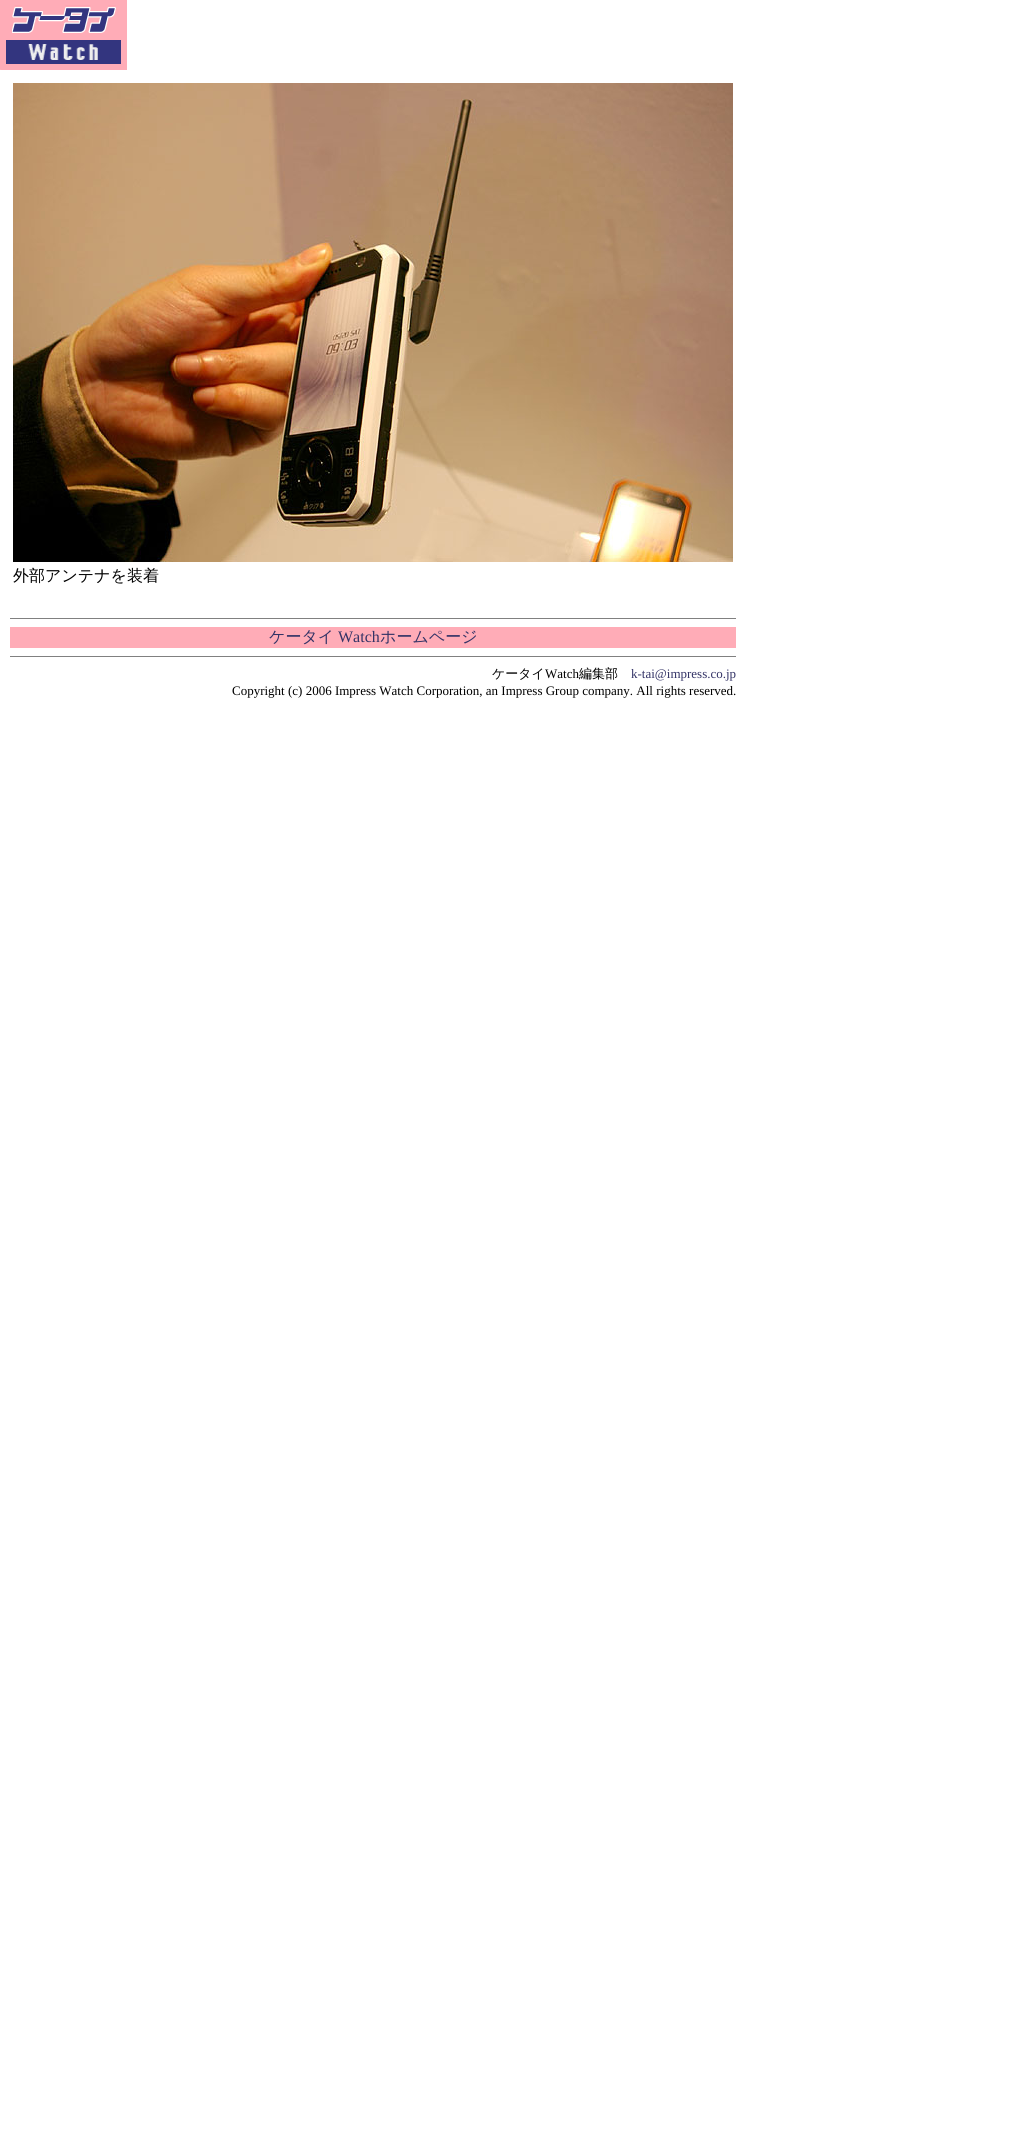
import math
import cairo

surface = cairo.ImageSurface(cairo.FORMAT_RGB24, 1017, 2133)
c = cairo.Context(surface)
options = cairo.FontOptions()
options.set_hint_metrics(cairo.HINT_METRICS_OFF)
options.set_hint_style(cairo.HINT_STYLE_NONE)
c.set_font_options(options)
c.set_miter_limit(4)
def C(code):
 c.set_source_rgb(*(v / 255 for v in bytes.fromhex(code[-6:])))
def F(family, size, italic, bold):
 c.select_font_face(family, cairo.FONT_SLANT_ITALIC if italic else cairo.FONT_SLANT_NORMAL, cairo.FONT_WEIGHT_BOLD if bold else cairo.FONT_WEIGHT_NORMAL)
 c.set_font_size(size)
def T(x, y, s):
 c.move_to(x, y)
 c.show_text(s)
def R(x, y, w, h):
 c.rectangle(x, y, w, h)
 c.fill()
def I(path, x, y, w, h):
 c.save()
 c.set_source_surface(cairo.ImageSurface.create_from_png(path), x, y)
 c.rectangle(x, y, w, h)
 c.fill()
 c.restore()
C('ffffff')
c.paint()
C('ffacb7')
R(0,0,127,70)
I('1.png',0,5,121,65)
I('2.png',13,83,720,479)
F('WenQuanYi Zen Hei Medium',16,0,0)
C('000000')
T(13,581,'外部アンテナを装着')
C('808080')
R(10,618,726,1)
C('ffacb7')
R(10,627,726,21)
C('333366')
T(269,642,'ケータイ')
F('Liberation Serif',16,0,0)
T(338,642,'Watch')
F('WenQuanYi Zen Hei Medium',16,0,0)
T(380,642,'ホームページ')
C('808080')
R(10,656,726,1)
F('WenQuanYi Zen Hei Medium',13,0,0)
C('000000')
T(492,678,'ケータイ')
F('Liberation Serif',13,0,0)
T(545,678,'Watch')
F('WenQuanYi Zen Hei Medium',13,0,0)
T(579,678,'編集部')
F('Liberation Serif',13,0,0)
C('333366')
T(631,678,'k-tai@impress.co.jp')
C('000000')
T(232,695,'Copyright (c) 2006 Impress Watch Corporation, an Impress Group company. All rights reserved.')
surface.write_to_png('o.png')
